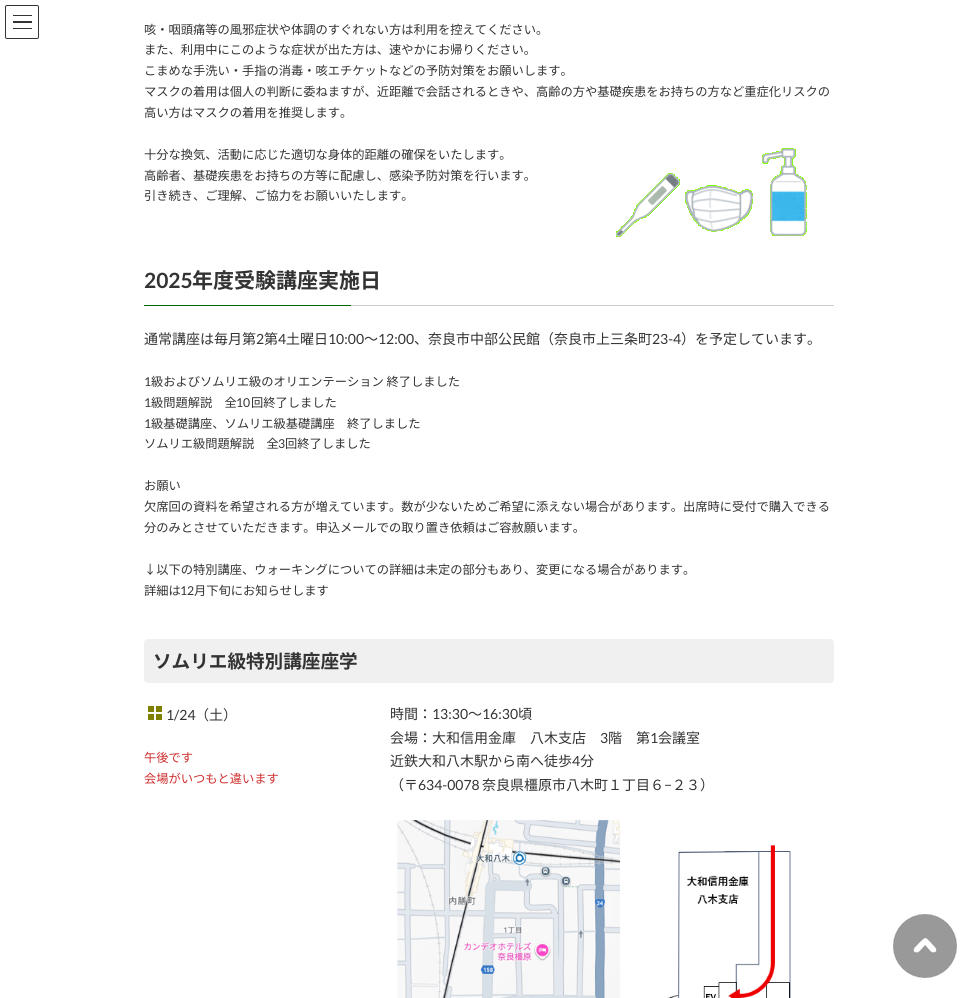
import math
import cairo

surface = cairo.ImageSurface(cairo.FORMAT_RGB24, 977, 998)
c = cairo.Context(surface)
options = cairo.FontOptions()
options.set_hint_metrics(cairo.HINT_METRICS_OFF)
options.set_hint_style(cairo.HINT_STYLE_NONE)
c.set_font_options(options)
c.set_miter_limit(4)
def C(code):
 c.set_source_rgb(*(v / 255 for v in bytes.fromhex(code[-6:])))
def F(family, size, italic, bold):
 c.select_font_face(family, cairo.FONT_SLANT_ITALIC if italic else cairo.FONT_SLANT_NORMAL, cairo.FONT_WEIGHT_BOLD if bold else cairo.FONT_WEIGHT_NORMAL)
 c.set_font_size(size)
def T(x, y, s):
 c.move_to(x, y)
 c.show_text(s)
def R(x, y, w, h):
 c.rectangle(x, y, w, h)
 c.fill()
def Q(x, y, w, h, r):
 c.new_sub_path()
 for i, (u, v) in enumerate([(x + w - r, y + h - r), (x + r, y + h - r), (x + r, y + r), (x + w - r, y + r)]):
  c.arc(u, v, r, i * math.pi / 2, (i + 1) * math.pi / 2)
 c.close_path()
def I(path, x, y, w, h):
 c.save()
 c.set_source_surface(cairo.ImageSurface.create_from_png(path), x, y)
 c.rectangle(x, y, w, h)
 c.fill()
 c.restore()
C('ffffff')
c.paint()
C('333333')
R(13,15,19,1)
R(13,21,19,2)
R(13,28,19,1)
Q(5.5,5.5,33,33,1.5)
c.set_line_width(1)
c.stroke()
F('Noto Sans JP',12.25,0,0)
T(144,34,'咳・咽頭痛等の風邪症状や体調のすぐれない方は利用を控えてください。')
T(144,54,'また、利用中にこのような症状が出た方は、速やかにお帰りください。')
T(144,75,'こまめな手洗い・手指の消毒・咳エチケットなどの予防対策をお願いします。')
T(144,96,'マスクの着用は個人の判断に委ねますが、近距離で会話されるときや、高齢の方や基礎疾患をお持ちの方など重症化リスクの')
T(144,117,'高い方はマスクの着用を推奨します。')
T(144,159,'十分な換気、活動に応じた適切な身体的距離の確保をいたします。')
T(144,180,'高齢者、基礎疾患をお持ちの方等に配慮し、感染予防対策を行います。')
T(144,200,'引き続き、ご理解、ご協力をお願いいたします。')
I('1.png',616,148,191,89)
C('cccccc')
R(351,305,483,1)
F('Lato',21,0,1)
C('333333')
T(144,288,'2025')
F('Noto Sans JP',21,0,1)
T(192,288,'年度受験講座実施日')
C('006600')
R(144,305,207,1)
F('Noto Sans JP',14,0,0)
C('333333')
T(144,344,'通常講座は毎月第')
F('Lato',14,0,0)
T(256,344,'2')
F('Noto Sans JP',14,0,0)
T(264,344,'第')
F('Lato',14,0,0)
T(278,344,'4')
F('Noto Sans JP',14,0,0)
T(286,344,'土曜日')
F('Lato',14,0,0)
T(328,344,'10:00')
F('Noto Sans JP',14,0,0)
T(364,344,'～')
F('Lato',14,0,0)
T(378,344,'12:00')
F('Noto Sans JP',14,0,0)
T(414,344,'、奈良市中部公民館（奈良市上三条町')
F('Lato',14,0,0)
T(652,344,'23-4')
F('Noto Sans JP',14,0,0)
T(681,344,'）を予定しています。')
F('Lato',12.25,0,0)
T(144,386,'1')
F('Noto Sans JP',12.25,0,0)
T(151,386,'級およびソムリエ級のオリエンテーション 終了しました')
F('Lato',12.25,0,0)
T(144,407,'1')
F('Noto Sans JP',12.25,0,0)
T(151,407,'級問題解説　全')
F('Lato',12.25,0,0)
T(236,407,'10')
F('Noto Sans JP',12.25,0,0)
T(251,407,'回終了しました')
F('Lato',12.25,0,0)
T(144,428,'1')
F('Noto Sans JP',12.25,0,0)
T(151,428,'級基礎講座、ソムリエ級基礎講座　終了しました')
T(144,448,'ソムリエ級問題解説　全')
F('Lato',12.25,0,0)
T(278,448,'3')
F('Noto Sans JP',12.25,0,0)
T(285,448,'回終了しました')
T(144,490,'お願い')
T(144,511,'欠席回の資料を希望される方が増えています。数が少ないためご希望に添えない場合があります。出席時に受付で購入できる')
T(144,532,'分のみとさせていただきます。申込メールでの取り置き依頼はご容赦願います。')
T(144,574,'↓以下の特別講座、ウォーキングについての詳細は未定の部分もあり、変更になる場合があります。')
T(144,595,'詳細は')
F('Lato',12.25,0,0)
T(180,595,'12')
F('Noto Sans JP',12.25,0,0)
T(194,595,'月下旬にお知らせします')
C('f0f0f0')
Q(144,639,690,44,4)
c.fill()
F('Noto Sans JP',18.6,0,1)
C('333333')
T(153,668,'ソムリエ級特別講座座学')
I('2.png',148,706,14,14)
F('Lato',14,0,0)
T(166,720,'1/24')
F('Noto Sans JP',14,0,0)
T(195,720,'（土）')
F('Noto Sans JP',12.25,0,0)
C('cf2e2e')
T(144,762,'午後です')
T(144,783,'会場がいつもと違います')
F('Noto Sans JP',14,0,0)
C('333333')
T(390,719,'時間：')
F('Lato',14,0,0)
T(432,719,'13:30')
F('Noto Sans JP',14,0,0)
T(468,719,'～')
F('Lato',14,0,0)
T(482,719,'16:30')
F('Noto Sans JP',14,0,0)
T(518,719,'頃')
T(390,743,'会場：大和信用金庫　八木支店')
F('Lato',14,0,0)
T(600,743,'3')
F('Noto Sans JP',14,0,0)
T(608,743,'階　第')
F('Lato',14,0,0)
T(650,743,'1')
F('Noto Sans JP',14,0,0)
T(658,743,'会議室')
T(390,766,'近鉄大和八木駅から南へ徒歩')
F('Lato',14,0,0)
T(572,766,'4')
F('Noto Sans JP',14,0,0)
T(580,766,'分')
T(390,790,'（〒')
F('Lato',14,0,0)
T(418,790,'634-0078')
F('Noto Sans JP',14,0,0)
T(482,790,'奈良県橿原市八木町１丁目６')
F('Lato',14,0,0)
T(664,790,'−')
F('Noto Sans JP',14,0,0)
T(672,790,'２３）')
I('3.png',397,820,394,178)
I('4.png',893,914,64,64)
surface.write_to_png('o.png')
